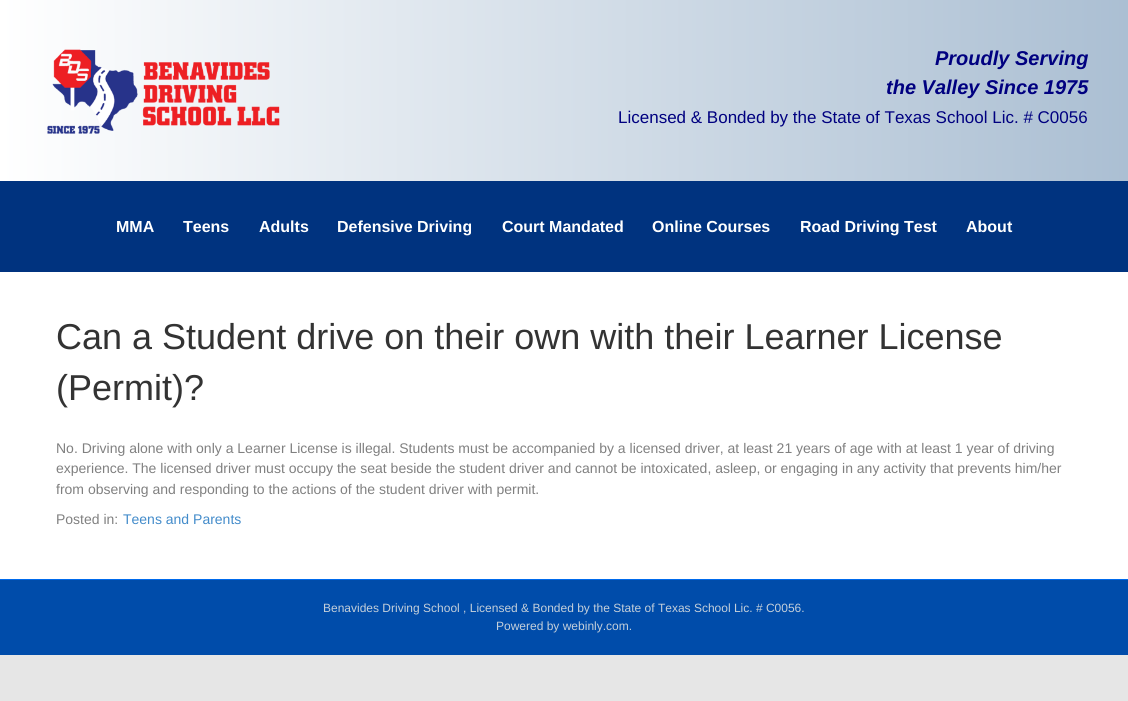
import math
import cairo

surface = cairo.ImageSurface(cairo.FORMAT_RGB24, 1128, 701)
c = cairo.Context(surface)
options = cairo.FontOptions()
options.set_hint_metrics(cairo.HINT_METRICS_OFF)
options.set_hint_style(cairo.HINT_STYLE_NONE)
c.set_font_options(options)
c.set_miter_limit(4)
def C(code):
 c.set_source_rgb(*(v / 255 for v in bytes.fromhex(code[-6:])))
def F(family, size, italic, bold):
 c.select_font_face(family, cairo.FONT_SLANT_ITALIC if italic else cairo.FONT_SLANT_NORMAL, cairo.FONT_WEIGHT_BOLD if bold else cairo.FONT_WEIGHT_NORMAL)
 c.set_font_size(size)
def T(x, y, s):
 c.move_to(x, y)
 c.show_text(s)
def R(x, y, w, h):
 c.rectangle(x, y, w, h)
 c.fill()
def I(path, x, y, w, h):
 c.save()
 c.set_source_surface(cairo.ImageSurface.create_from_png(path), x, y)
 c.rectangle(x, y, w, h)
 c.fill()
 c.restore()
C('e6e6e6')
c.paint()
gradient = cairo.LinearGradient(0,91,1128,90)
gradient.add_color_stop_rgba(0,1,1,1,1)
gradient.add_color_stop_rgba(1,0.671,0.749,0.827,1)
c.set_source(gradient)
R(0,0,1128,181)
I('1.png',47,49,233,85)
F('Liberation Sans',20,1,1)
C('000080')
T(935,65,'Proudly Serving')
T(886,94,'the Valley Since 1975')
F('Liberation Sans',17,0,0)
T(618,123,'Licensed & Bonded by the State of Texas School Lic. # C0056')
C('00337f')
R(0,181,1128,91)
F('Liberation Sans',16,0,1)
C('ffffff')
T(116,232,'MMA')
T(183,232,'Teens')
T(259,232,'Adults')
T(337,232,'Defensive Driving')
T(502,232,'Court Mandated')
T(652,232,'Online Courses')
T(800,232,'Road Driving Test')
T(966,232,'About')
R(0,272,1128,307)
F('Liberation Sans',36,0,0)
C('333333')
T(56,349,'Can a Student drive on their own with their Learner License')
T(56,400,'(Permit)?')
F('Liberation Sans',14,0,0)
C('808080')
T(56,453,'No. Driving alone with only a Learner License is illegal. Students must be accompanied by a licensed driver, at least 21 years of age with at least 1 year of driving')
T(56,473,'experience. The licensed driver must occupy the seat beside the student driver and cannot be intoxicated, asleep, or engaging in any activity that prevents him/her')
T(56,494,'from observing and responding to the actions of the student driver with permit.')
T(56,524,'Posted in:')
C('428bca')
T(123,524,'Teens and Parents')
C('004caa')
R(0,580,1128,75)
C('006aec')
R(0,579,1128,1)
F('Liberation Sans',12,0,0)
C('c4cfda')
T(323,612,'Benavides Driving School , Licensed & Bonded by the State of Texas School Lic. # C0056.')
T(496,630,'Powered by webinly.com.')
surface.write_to_png('o.png')
